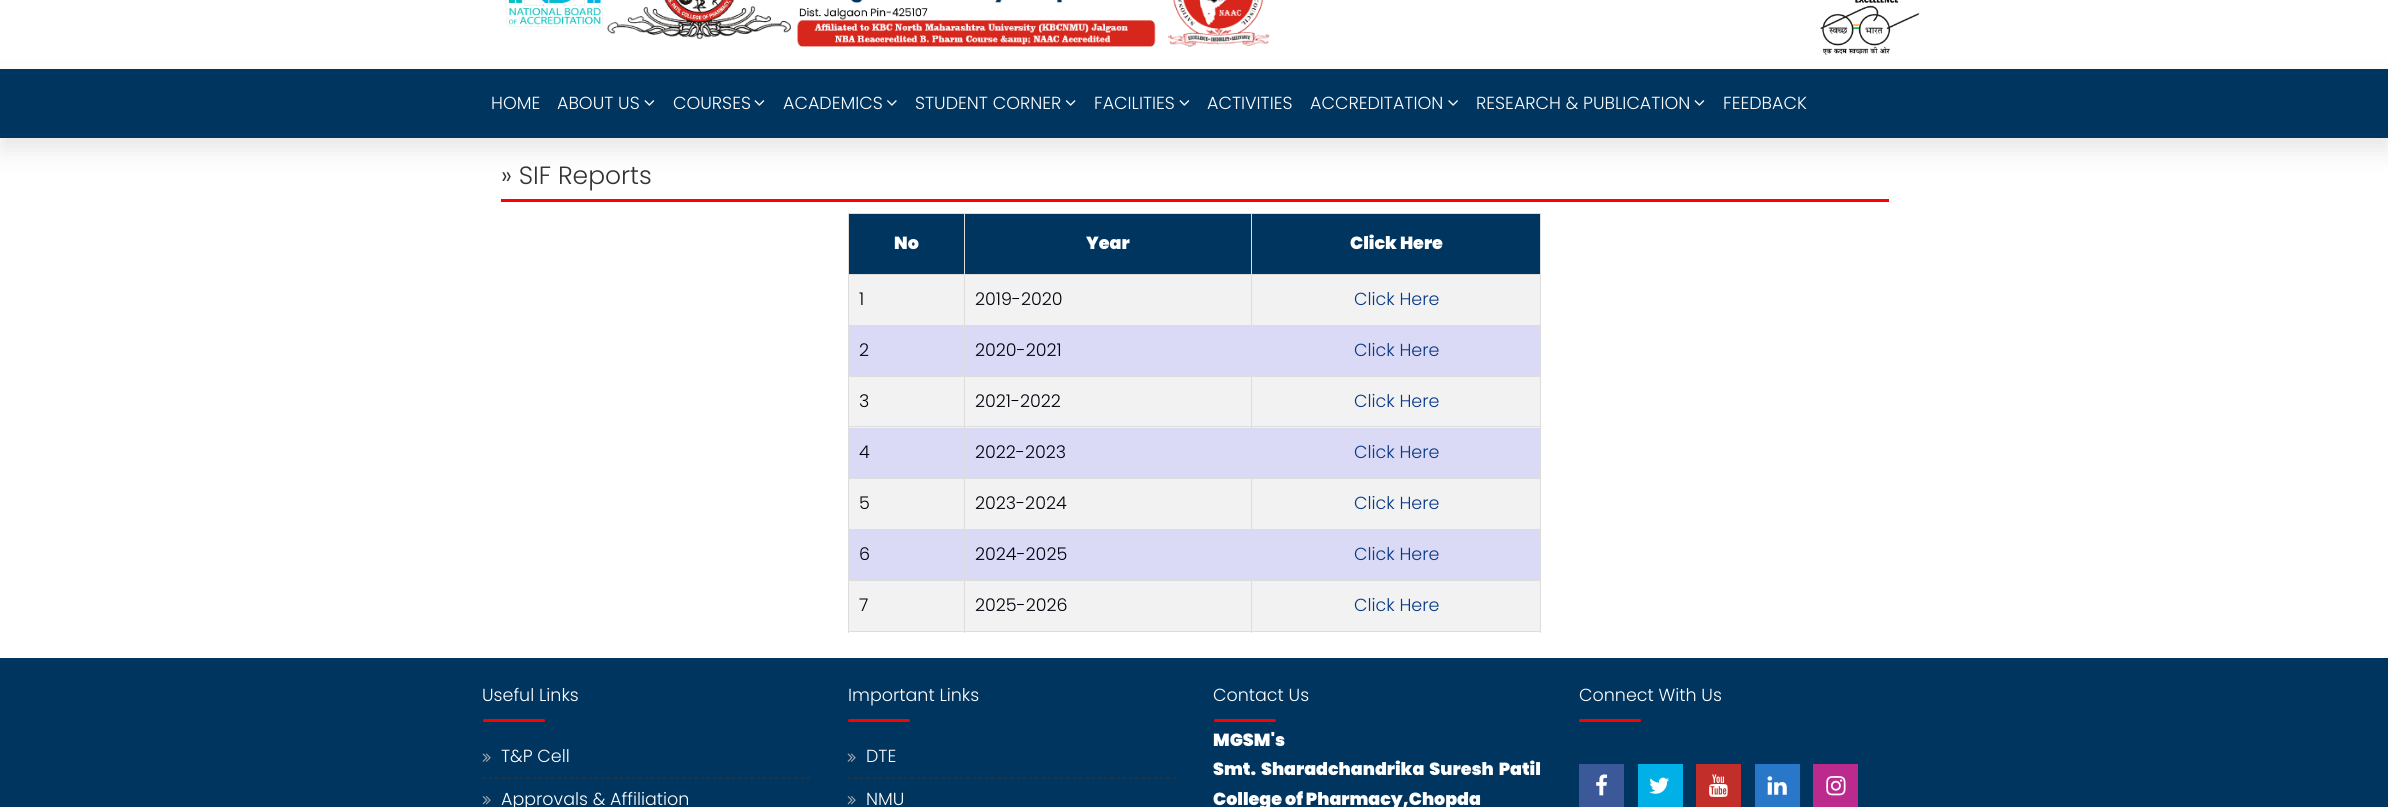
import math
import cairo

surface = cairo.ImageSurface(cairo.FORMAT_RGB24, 2388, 807)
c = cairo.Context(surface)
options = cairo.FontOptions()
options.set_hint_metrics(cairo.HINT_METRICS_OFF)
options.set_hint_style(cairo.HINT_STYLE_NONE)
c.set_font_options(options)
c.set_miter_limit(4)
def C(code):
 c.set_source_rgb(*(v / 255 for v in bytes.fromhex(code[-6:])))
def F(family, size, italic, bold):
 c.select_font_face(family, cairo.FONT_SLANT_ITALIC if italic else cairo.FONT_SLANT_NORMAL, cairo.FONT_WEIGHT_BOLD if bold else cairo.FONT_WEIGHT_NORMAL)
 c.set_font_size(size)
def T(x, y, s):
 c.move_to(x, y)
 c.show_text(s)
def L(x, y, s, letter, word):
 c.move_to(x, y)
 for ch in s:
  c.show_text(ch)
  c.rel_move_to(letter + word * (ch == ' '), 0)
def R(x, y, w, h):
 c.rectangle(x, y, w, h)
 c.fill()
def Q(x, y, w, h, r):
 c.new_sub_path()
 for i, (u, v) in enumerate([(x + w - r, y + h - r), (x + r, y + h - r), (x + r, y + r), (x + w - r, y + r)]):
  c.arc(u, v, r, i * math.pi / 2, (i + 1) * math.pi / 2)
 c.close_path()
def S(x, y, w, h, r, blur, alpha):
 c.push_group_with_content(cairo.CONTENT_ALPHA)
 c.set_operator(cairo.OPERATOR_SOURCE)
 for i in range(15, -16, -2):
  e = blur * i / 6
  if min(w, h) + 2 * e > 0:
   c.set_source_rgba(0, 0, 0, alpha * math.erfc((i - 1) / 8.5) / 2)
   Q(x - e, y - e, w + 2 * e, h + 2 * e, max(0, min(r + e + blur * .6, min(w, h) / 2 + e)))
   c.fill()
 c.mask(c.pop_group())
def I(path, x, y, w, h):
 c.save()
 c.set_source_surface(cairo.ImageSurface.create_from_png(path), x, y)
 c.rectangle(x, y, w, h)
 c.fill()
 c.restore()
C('ffffff')
c.paint()
I('1.png',505,0,765,47)
I('2.png',1820,0,100,55)
C('000000')
S(0,81,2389,69,0,12.5,.1)
C('003560')
R(0,69,2388,69)
F('Poppins Light',17.5,0,0)
C('ffffff')
T(491,109,'HOME')
T(557,109,'ABOUT US')
I('3.png',644,100,11,6)
T(673,109,'COURSES')
I('3.png',754,100,11,6)
T(783,109,'ACADEMICS')
I('4.png',887,100,10,6)
T(915,109,'STUDENT CORNER')
I('5.png',1065,100,11,6)
T(1094,109,'FACILITIES')
I('3.png',1179,100,11,6)
T(1207,109,'ACTIVITIES')
T(1310,109,'ACCREDITATION')
I('6.png',1448,100,10,6)
T(1476,109,'RESEARCH & PUBLICATION')
I('3.png',1694,100,11,6)
T(1723,109,'FEEDBACK')
F('Poppins Light',25,0,0)
C('333333')
T(501,184,'» SIF Reports')
C('ff0000')
R(501,199,1388,3)
C('003560')
R(849,214,115,60)
C('dddddd')
R(1251,213,290,1)
C('003560')
R(965,214,575,60)
C('dddddd')
R(1251,274,290,1)
C('f2f2f2')
R(849,275,691,50)
C('dddddd')
R(1251,325,290,1)
C('dad9f6')
R(849,326,691,50)
C('f2f2f2')
R(849,377,691,51)
C('dddddd')
R(1251,376,290,1)
R(1251,426,290,1)
C('dad9f6')
R(849,428,691,50)
C('dddddd')
R(1251,478,290,1)
C('f2f2f2')
R(849,479,691,50)
C('dddddd')
R(1251,529,290,1)
C('dad9f6')
R(849,530,691,50)
C('dddddd')
R(1251,580,290,1)
C('f2f2f2')
R(849,581,691,50)
C('dddddd')
R(1540,580,1,53)
R(1251,631,290,1)
R(1251,580,1,53)
R(964,580,289,1)
R(1251,529,1,52)
R(964,529,289,1)
R(1251,478,1,52)
R(964,478,289,1)
R(1251,426,1,53)
R(964,426,289,1)
R(1251,376,1,52)
R(964,376,289,1)
R(1251,325,1,53)
R(964,325,289,1)
R(1251,274,1,52)
R(964,274,289,1)
R(1251,213,1,62)
R(964,213,289,1)
R(964,631,289,1)
R(964,580,1,53)
R(848,580,117,1)
R(964,529,1,52)
R(848,529,117,1)
R(964,478,1,52)
R(848,478,117,1)
R(964,426,1,53)
R(848,426,117,1)
R(964,376,1,52)
R(848,376,117,1)
R(964,325,1,53)
R(848,325,117,1)
R(964,274,1,52)
R(848,274,117,1)
R(964,213,1,62)
R(848,213,117,1)
R(848,631,117,1)
R(848,580,1,53)
R(848,529,1,52)
R(848,478,1,52)
R(848,426,1,53)
R(848,376,1,52)
R(848,325,1,53)
R(848,274,1,52)
R(848,213,1,62)
F('Poppins Black',17.5,0,0)
C('ffffff')
T(894,249,'No')
T(1086,249,'Year')
C('dddddd')
R(1540,529,1,52)
R(1540,478,1,52)
R(1540,426,1,53)
R(1540,376,1,52)
R(1540,325,1,53)
R(1540,274,1,52)
R(1540,213,1,62)
C('ffffff')
T(1350,249,'Click Here')
F('Poppins Light',17.5,0,0)
C('00000b')
T(859,305,'1')
T(975,305,'2019-2020')
C('073884')
T(1354,305,'Click Here')
C('00000b')
T(859,356,'2')
T(975,356,'2020-2021')
C('073884')
T(1354,356,'Click Here')
C('00000b')
T(859,407,'3')
T(975,407,'2021-2022')
C('073884')
T(1354,407,'Click Here')
C('00000b')
T(859,458,'4')
T(975,458,'2022-2023')
C('073884')
T(1354,458,'Click Here')
C('00000b')
T(859,509,'5')
T(975,509,'2023-2024')
C('073884')
T(1354,509,'Click Here')
C('00000b')
T(859,560,'6')
T(975,560,'2024-2025')
C('073884')
T(1354,560,'Click Here')
C('00000b')
T(859,611,'7')
T(975,611,'2025-2026')
C('073884')
T(1354,611,'Click Here')
C('003560')
R(0,658,2388,149)
C('ffffff')
T(482,701,'Useful Links')
C('ff0000')
Q(483,719,62,3,1.5)
c.fill()
c.new_path()
c.move_to(482.5,778)
c.line_to(810,778)
C('333333')
c.set_line_width(1.2)
c.set_dash([3.75,2.48])
c.stroke()
I('7.png',482,753,9,9)
C('ffffff')
T(501,762,'T&P Cell')
I('8.png',482,796,9,9)
T(501,805,'Approvals & Affiliation')
T(848,701,'Important Links')
C('ff0000')
Q(848,719,62,3,1.5)
c.fill()
c.new_path()
c.move_to(847.5,778)
c.line_to(1176,778)
C('333333')
c.set_dash([3.75,2.5])
c.stroke()
I('7.png',847,753,9,9)
C('ffffff')
T(866,762,'DTE')
I('8.png',847,796,9,9)
T(866,805,'NMU')
T(1213,701,'Contact Us')
C('ff0000')
Q(1214,719,62,3,1.5)
c.fill()
F('Poppins Black',17.5,0,0)
C('ffffff')
T(1213,746,'MGSM\'s')
L(1213,775,'Smt. Sharadchandrika Suresh Patil',0,2)
T(1213,805,'College of Pharmacy,Chopda')
F('Poppins Light',17.5,0,0)
T(1579,701,'Connect With Us')
C('ff0000')
Q(1579,719,62,3,1.5)
c.fill()
C('3b5998')
R(1579,764,45,43)
I('9.png',1596,774,12,22)
C('02b0e8')
R(1638,764,45,43)
I('10.png',1649,777,20,17)
C('c22e2a')
R(1696,764,45,43)
I('11.png',1709,774,19,23)
C('2977c9')
R(1755,764,45,43)
I('12.png',1767,776,20,19)
C('bc2a8d')
R(1813,764,45,43)
I('13.png',1826,776,20,20)
surface.write_to_png('o.png')
